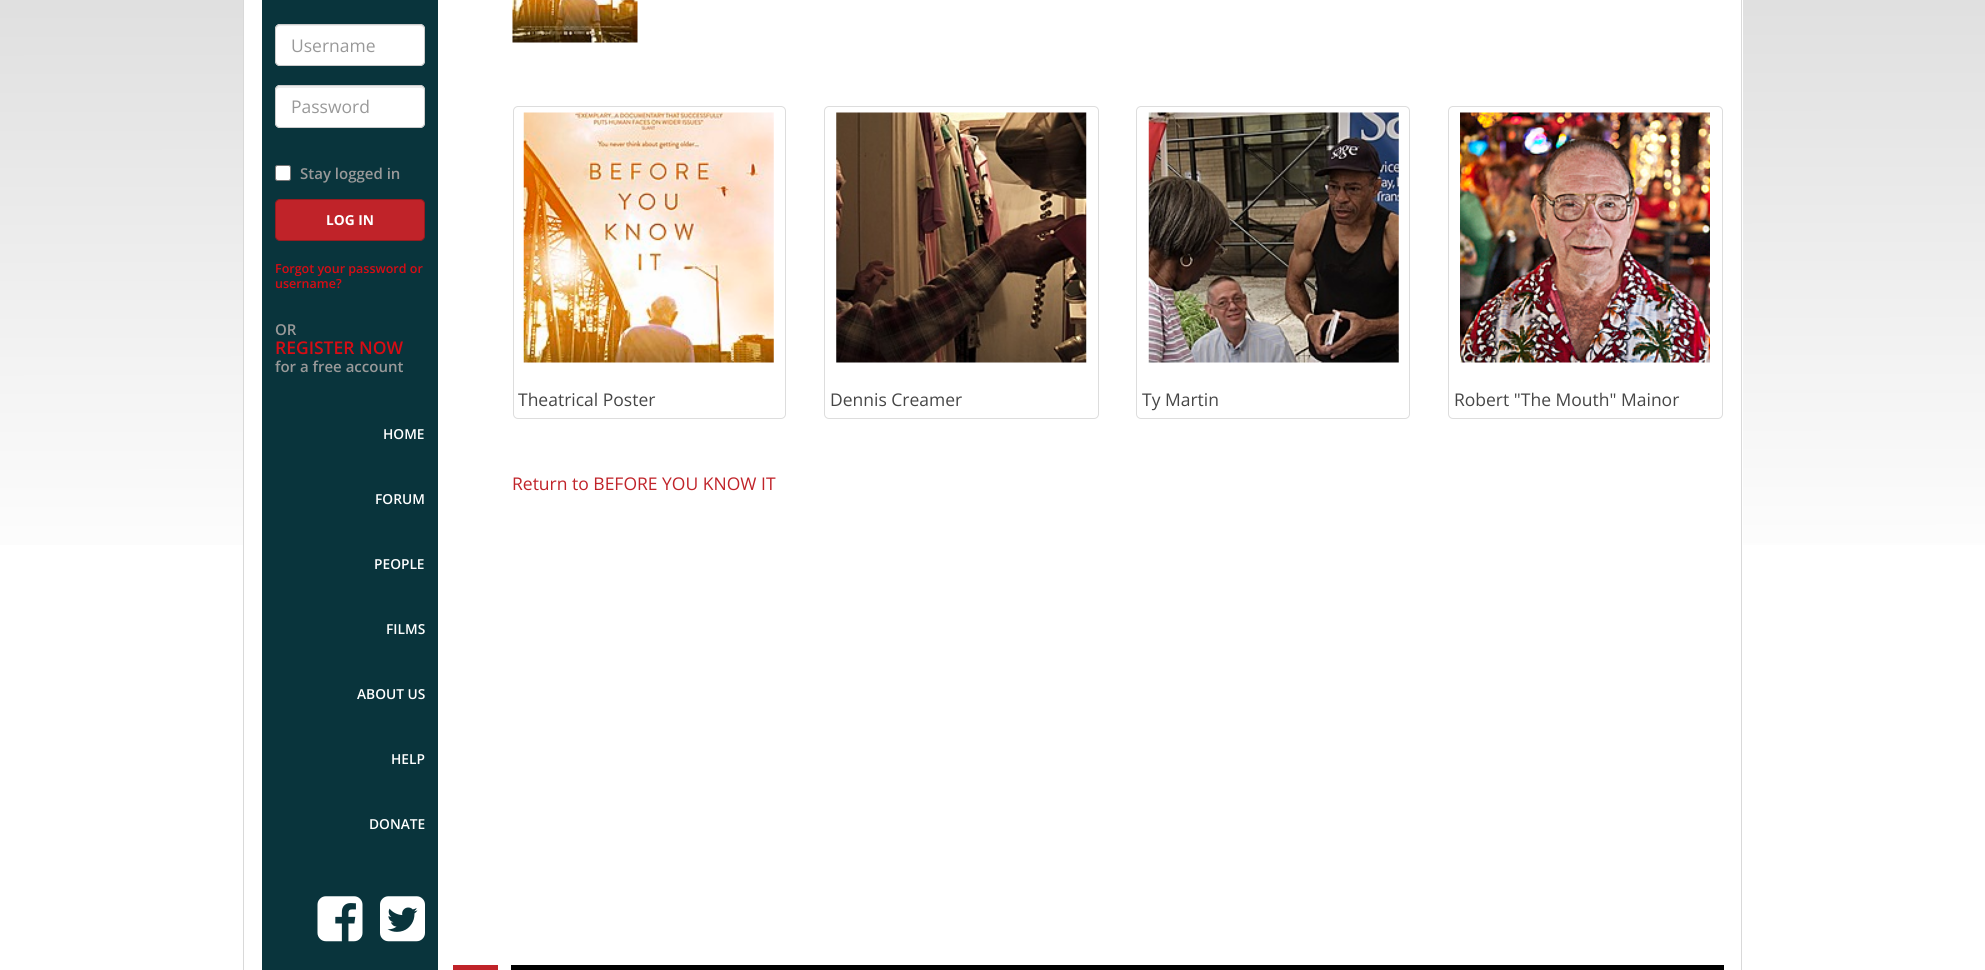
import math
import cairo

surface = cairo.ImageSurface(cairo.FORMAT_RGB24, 1985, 970)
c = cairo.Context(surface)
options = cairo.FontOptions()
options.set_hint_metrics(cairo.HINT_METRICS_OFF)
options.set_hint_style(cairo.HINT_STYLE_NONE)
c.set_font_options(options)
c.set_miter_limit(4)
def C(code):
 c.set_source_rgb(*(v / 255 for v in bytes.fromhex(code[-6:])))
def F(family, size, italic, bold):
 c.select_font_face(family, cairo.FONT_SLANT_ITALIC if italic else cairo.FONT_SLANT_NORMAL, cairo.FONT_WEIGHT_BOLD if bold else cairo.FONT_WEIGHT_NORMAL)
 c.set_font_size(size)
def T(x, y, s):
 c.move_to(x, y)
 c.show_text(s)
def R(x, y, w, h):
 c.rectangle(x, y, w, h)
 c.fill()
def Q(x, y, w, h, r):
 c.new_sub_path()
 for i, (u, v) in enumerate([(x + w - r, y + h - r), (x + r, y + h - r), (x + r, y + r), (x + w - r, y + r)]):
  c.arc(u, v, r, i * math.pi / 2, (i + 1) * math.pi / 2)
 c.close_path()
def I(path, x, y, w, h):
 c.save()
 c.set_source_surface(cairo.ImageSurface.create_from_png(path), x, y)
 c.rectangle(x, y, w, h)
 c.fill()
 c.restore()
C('ffffff')
c.paint()
gradient = cairo.LinearGradient(992,-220,993,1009)
gradient.add_color_stop_rgba(0,0.831,0.831,0.831,1)
gradient.add_color_stop_rgba(.66,1,1,1,1)
c.set_source(gradient)
R(0,0,1985,545)
C('ffffff')
R(244,0,1499,545)
C('09343c')
R(262,0,176,970)
C('d9d9d9')
R(1741,0,1,970)
R(243,0,1,970)
C('ffffff')
Q(275,24,150,42,5)
c.fill()
C('ececec')
c.new_path()
c.move_to(280,26)
c.line_to(420,26)
c.curve_to(422,26,424,28,424,30)
c.curve_to(424,28,423,26,421,25)
c.line_to(280,25)
c.curve_to(277,25,276,27,276,30)
c.curve_to(276,28,278,26,280,26)
c.close_path()
c.fill()
Q(275.5,24.5,149,41,4.5)
C('cccccc')
c.set_line_width(1)
c.stroke()
F('Open Sans',17.5,0,0)
C('999999')
T(291,52,'Username')
C('ffffff')
Q(275,85,150,43,5)
c.fill()
C('ececec')
c.new_path()
c.move_to(280,88)
c.line_to(420,88)
c.curve_to(422,88,424,89,424,91)
c.curve_to(424,89,423,87,421,86)
c.line_to(280,86)
c.curve_to(277,86,276,88,276,91)
c.curve_to(276,89,278,88,280,88)
c.close_path()
c.fill()
Q(275.5,85.5,149,42,4.5)
C('cccccc')
c.stroke()
C('999999')
T(291,113,'Password')
C('ffffff')
Q(275.5,165.5,15,15,2)
c.fill_preserve()
C('767676')
c.stroke()
F('Open Sans SemiBold',15,0,0)
C('999999')
T(300,179,'Stay logged in')
C('c02329')
Q(275.5,199.5,149,41,4.5)
c.fill_preserve()
C('951b20')
c.stroke()
F('Open Sans',13.75,0,1)
C('ffffff')
T(326,225,'LOG IN')
F('Open Sans SemiBold',12.5,0,0)
C('d70c14')
T(275,273,'Forgot your password or')
T(275,288,'username?')
F('Open Sans SemiBold',15,0,0)
C('999999')
T(275,335,'OR')
F('Open Sans SemiBold',17.5,0,0)
C('d70c14')
T(275,354,'REGISTER NOW')
F('Open Sans SemiBold',15,0,0)
C('999999')
T(275,372,'for a free account')
F('Open Sans SemiBold',13.75,0,0)
C('ffffff')
T(383,439,'HOME')
T(375,504,'FORUM')
T(374,569,'PEOPLE')
T(386,634,'FILMS')
T(357,699,'ABOUT US')
T(391,764,'HELP')
T(369,829,'DONATE')
I('1.png',317,896,46,46)
I('2.png',380,896,45,46)
I('3.png',512,0,126,43)
Q(513.5,106.5,272,312,4.5)
C('dddddd')
c.stroke()
I('4.png',523,112,251,251)
F('Open Sans',17.5,0,0)
C('464646')
T(518,406,'Theatrical Poster')
Q(824.5,106.5,274,312,4.5)
C('dddddd')
c.stroke()
I('5.png',836,112,251,251)
C('464646')
T(830,406,'Dennis Creamer')
Q(1136.5,106.5,273,312,4.5)
C('dddddd')
c.stroke()
I('6.png',1148,112,251,251)
C('464646')
T(1142,406,'Ty Martin')
Q(1448.5,106.5,274,312,4.5)
C('dddddd')
c.stroke()
I('7.png',1460,112,250,251)
C('464646')
T(1454,406,'Robert "The Mouth" Mainor')
C('c02329')
T(512,490,'Return to BEFORE YOU KNOW IT')
C('000000')
R(511,965,1213,5)
C('c02329')
R(453,965,45,5)
surface.write_to_png('o.png')
